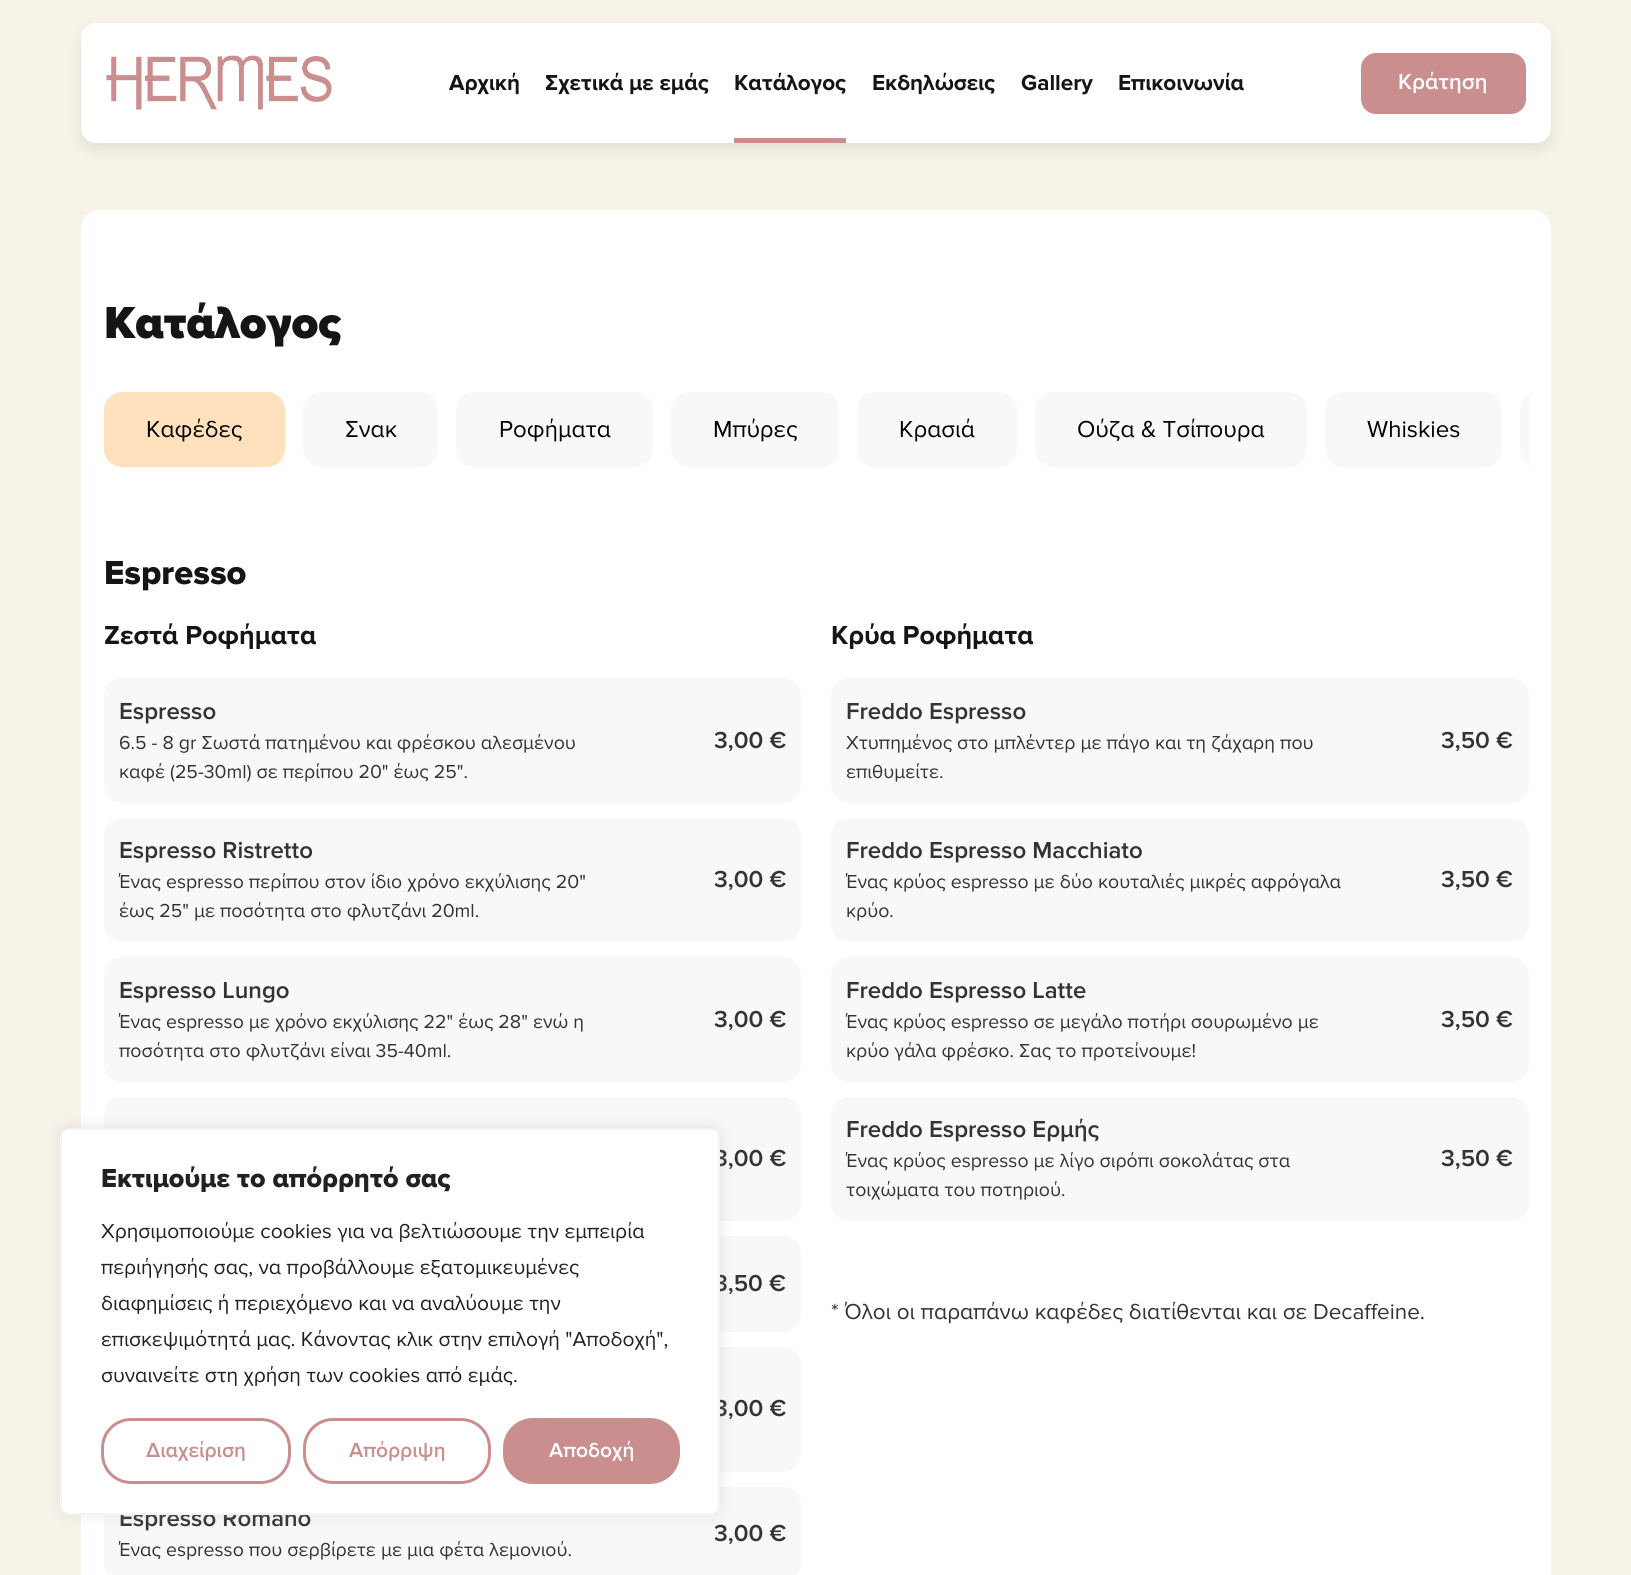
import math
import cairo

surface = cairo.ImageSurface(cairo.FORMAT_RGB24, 1631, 1575)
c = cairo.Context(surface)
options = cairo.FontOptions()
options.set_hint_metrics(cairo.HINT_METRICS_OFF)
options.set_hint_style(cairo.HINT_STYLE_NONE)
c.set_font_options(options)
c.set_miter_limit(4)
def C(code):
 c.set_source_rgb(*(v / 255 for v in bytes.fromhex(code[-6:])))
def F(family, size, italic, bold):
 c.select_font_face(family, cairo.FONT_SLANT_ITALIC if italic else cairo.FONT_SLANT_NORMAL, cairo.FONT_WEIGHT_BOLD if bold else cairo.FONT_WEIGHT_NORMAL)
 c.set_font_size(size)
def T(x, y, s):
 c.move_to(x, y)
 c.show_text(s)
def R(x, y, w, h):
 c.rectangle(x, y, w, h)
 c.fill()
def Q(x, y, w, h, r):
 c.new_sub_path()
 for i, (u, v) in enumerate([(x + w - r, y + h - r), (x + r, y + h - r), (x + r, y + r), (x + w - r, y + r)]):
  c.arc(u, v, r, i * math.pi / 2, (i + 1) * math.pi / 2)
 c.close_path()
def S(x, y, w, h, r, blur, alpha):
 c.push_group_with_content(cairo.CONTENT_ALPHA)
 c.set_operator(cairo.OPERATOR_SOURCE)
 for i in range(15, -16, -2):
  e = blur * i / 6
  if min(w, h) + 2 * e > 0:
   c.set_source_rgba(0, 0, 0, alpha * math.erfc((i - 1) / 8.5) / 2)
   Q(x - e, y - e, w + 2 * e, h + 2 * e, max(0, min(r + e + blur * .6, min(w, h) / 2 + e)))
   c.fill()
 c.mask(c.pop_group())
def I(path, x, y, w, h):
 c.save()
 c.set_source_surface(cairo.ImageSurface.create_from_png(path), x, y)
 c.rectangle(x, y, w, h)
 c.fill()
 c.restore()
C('f7f3e8')
c.paint()
C('1a2f33')
S(81,30,1470,120,15,7.5,.1)
C('ffffff')
Q(81,23,1470,120,15)
c.fill()
I('1.png',106,55,226,55)
F('Proxima Nova',22.5,0,1)
C('171414')
T(449,90,'Αρχική')
T(545,90,'Σχετικά με εμάς')
T(734,90,'Κατάλογος')
C('ca8e8e')
R(734,138,112,5)
C('171414')
T(872,90,'Εκδηλώσεις')
T(1021,90,'Gallery')
T(1118,90,'Επικοινωνία')
C('ca8e8e')
Q(1361,53,165,61,15)
c.fill()
F('Proxima Nova SemiBold',22.5,0,0)
C('ffffff')
T(1398,89,'Κράτηση')
Q(81,210,1470,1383,18)
c.fill()
F('Proxima Nova Black',46.5,0,0)
C('171414')
T(104,338,'Κατάλογος')
C('ffe1be')
Q(104,392,181,75,18)
c.fill()
F('Proxima Nova',24,0,0)
C('000000')
T(146,437,'Καφέδες')
C('f8f8f8')
Q(303,392,135,75,18)
c.fill()
C('000000')
T(345,437,'Σνακ')
C('f8f8f8')
Q(456,392,197,75,18)
c.fill()
C('000000')
T(499,437,'Ροφήματα')
C('f8f8f8')
Q(671,392,168,75,18)
c.fill()
C('000000')
T(713,437,'Μπύρες')
C('f8f8f8')
Q(857,392,160,75,18)
c.fill()
C('000000')
T(899,437,'Κρασιά')
C('f8f8f8')
Q(1035,392,272,75,18)
c.fill()
C('000000')
T(1077,437,'Ούζα & Τσίπουρα')
C('f8f8f8')
Q(1325,392,177,75,18)
c.fill()
C('000000')
T(1367,437,'Whiskies')
C('f8f8f8')
c.new_path()
c.move_to(1538,392)
c.line_to(1529,392)
c.line_to(1529,467)
c.line_to(1538,467)
c.curve_to(1528,467,1520,459,1520,449)
c.line_to(1520,410)
c.curve_to(1520,400,1528,392,1538,392)
c.close_path()
c.fill()
F('Proxima Nova ExtraBold',34.5,0,0)
C('171414')
T(104,584,'Espresso')
F('Proxima Nova',27,0,1)
T(104,644,'Ζεστά Ροφήματα')
C('f8f8f8')
Q(104,678,697,125,18)
c.fill()
F('Proxima Nova SemiBold',24,0,0)
C('333333')
T(119,719,'Espresso')
F('Proxima Nova',19.5,0,0)
T(119,749,'6.5 - 8 gr Σωστά πατημένου και φρέσκου αλεσμένου')
T(119,778,'καφέ (25-30ml) σε περίπου 20" έως 25".')
F('Proxima Nova SemiBold',24,0,0)
T(714,748,'3,00 €')
C('f8f8f8')
Q(104,818,697,124,18)
c.fill()
C('333333')
T(119,858,'Espresso Ristretto')
F('Proxima Nova',19.5,0,0)
T(119,888,'Ένας espresso περίπου στον ίδιο χρόνο εκχύλισης 20"')
T(119,917,'έως 25" με ποσότητα στο φλυτζάνι 20ml.')
F('Proxima Nova SemiBold',24,0,0)
T(714,887,'3,00 €')
C('f8f8f8')
Q(104,957,697,125,18)
c.fill()
C('333333')
T(119,998,'Espresso Lungo')
F('Proxima Nova',19.5,0,0)
T(119,1028,'Ένας espresso με χρόνο εκχύλισης 22" έως 28" ενώ η')
T(119,1057,'ποσότητα στο φλυτζάνι είναι 35-40ml.')
F('Proxima Nova SemiBold',24,0,0)
T(714,1027,'3,00 €')
C('f8f8f8')
Q(104,1097,697,124,18)
c.fill()
C('333333')
T(714,1166,'3,00 €')
C('f8f8f8')
Q(104,1236,697,96,18)
c.fill()
C('333333')
T(714,1291,'3,50 €')
C('f8f8f8')
Q(104,1347,697,125,18)
c.fill()
C('333333')
T(714,1416,'3,00 €')
C('f8f8f8')
Q(104,1487,697,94,18)
c.fill()
C('333333')
T(119,1526,'Espresso Romano')
F('Proxima Nova',19.5,0,0)
T(119,1556,'Ένας espresso που σερβίρετε με μια φέτα λεμονιού.')
F('Proxima Nova SemiBold',24,0,0)
T(714,1541,'3,00 €')
F('Proxima Nova',27,0,1)
C('171414')
T(831,644,'Κρύα Ροφήματα')
C('f8f8f8')
Q(831,678,698,125,18)
c.fill()
F('Proxima Nova SemiBold',24,0,0)
C('333333')
T(846,719,'Freddo Espresso')
F('Proxima Nova',19.5,0,0)
T(846,749,'Χτυπημένος στο μπλέντερ με πάγο και τη ζάχαρη που')
T(846,778,'επιθυμείτε.')
F('Proxima Nova SemiBold',24,0,0)
T(1441,748,'3,50 €')
C('f8f8f8')
Q(831,818,698,124,18)
c.fill()
C('333333')
T(846,858,'Freddo Espresso Macchiato')
F('Proxima Nova',19.5,0,0)
T(846,888,'Ένας κρύος espresso με δύο κουταλιές μικρές αφρόγαλα')
T(846,917,'κρύο.')
F('Proxima Nova SemiBold',24,0,0)
T(1441,887,'3,50 €')
C('f8f8f8')
Q(831,957,698,125,18)
c.fill()
C('333333')
T(846,998,'Freddo Espresso Latte')
F('Proxima Nova',19.5,0,0)
T(846,1028,'Ένας κρύος espresso σε μεγάλο ποτήρι σουρωμένο με')
T(846,1057,'κρύο γάλα φρέσκο. Σας το προτείνουμε!')
F('Proxima Nova SemiBold',24,0,0)
T(1441,1027,'3,50 €')
C('f8f8f8')
Q(831,1097,698,124,18)
c.fill()
C('333333')
T(846,1137,'Freddo Espresso Ερμής')
F('Proxima Nova',19.5,0,0)
T(846,1167,'Ένας κρύος espresso με λίγο σιρόπι σοκολάτας στα')
T(846,1196,'τοιχώματα του ποτηριού.')
F('Proxima Nova SemiBold',24,0,0)
T(1441,1166,'3,50 €')
F('Proxima Nova',22.5,0,0)
T(831,1319,'* Όλοι οι παραπάνω καφέδες διατίθενται και σε Decaffeine.')
C('acabab')
S(60,1127,660,387,9,7.5,.3)
C('ffffff')
Q(61,1129,658,385,8)
c.fill_preserve()
C('f4f4f4')
c.stroke()
F('Proxima Nova ExtraBold',27,0,0)
C('212121')
T(101,1187,'Εκτιμούμε το απόρρητό σας')
F('Proxima Nova',21,0,0)
T(101,1238,'Χρησιμοποιούμε cookies για να βελτιώσουμε την εμπειρία')
T(101,1274,'περιήγησής σας, να προβάλλουμε εξατομικευμένες')
T(101,1310,'διαφημίσεις ή περιεχόμενο και να αναλύουμε την')
T(101,1346,'επισκεψιμότητά μας. Κάνοντας κλικ στην επιλογή "Αποδοχή",')
T(101,1382,'συναινείτε στη χρήση των cookies από εμάς.')
Q(102.5,1419.5,187,63,28.5)
C('ca8e8e')
c.set_line_width(3)
c.stroke()
F('Proxima Nova SemiBold',21,0,0)
T(146,1457,'Διαχείριση')
Q(304.5,1419.5,185,63,28.5)
c.stroke()
T(349,1457,'Απόρριψη')
Q(504.5,1419.5,174,63,28.5)
c.fill_preserve()
c.stroke()
C('ffffff')
T(549,1457,'Αποδοχή')
surface.write_to_png('o.png')
